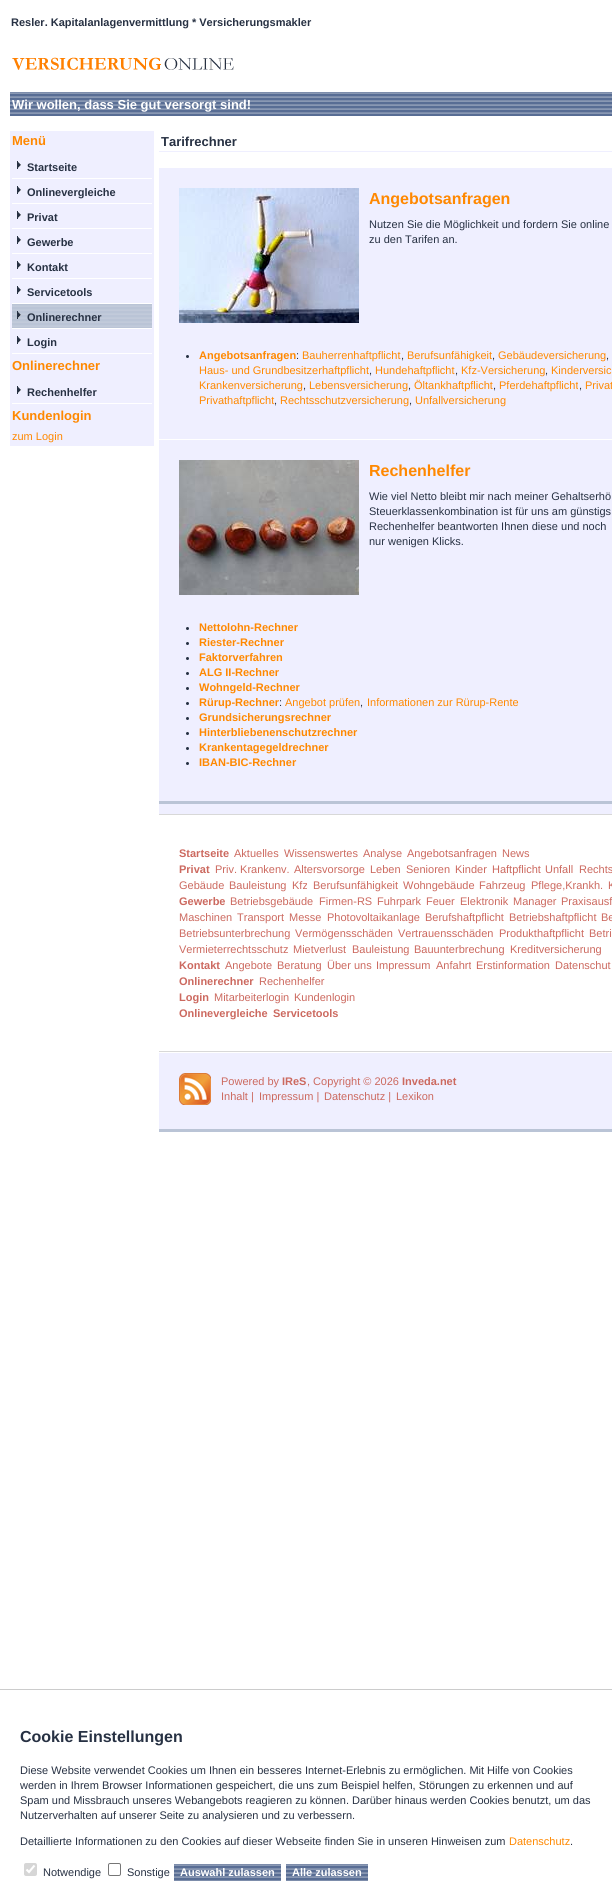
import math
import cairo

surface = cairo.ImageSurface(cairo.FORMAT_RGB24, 612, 1902)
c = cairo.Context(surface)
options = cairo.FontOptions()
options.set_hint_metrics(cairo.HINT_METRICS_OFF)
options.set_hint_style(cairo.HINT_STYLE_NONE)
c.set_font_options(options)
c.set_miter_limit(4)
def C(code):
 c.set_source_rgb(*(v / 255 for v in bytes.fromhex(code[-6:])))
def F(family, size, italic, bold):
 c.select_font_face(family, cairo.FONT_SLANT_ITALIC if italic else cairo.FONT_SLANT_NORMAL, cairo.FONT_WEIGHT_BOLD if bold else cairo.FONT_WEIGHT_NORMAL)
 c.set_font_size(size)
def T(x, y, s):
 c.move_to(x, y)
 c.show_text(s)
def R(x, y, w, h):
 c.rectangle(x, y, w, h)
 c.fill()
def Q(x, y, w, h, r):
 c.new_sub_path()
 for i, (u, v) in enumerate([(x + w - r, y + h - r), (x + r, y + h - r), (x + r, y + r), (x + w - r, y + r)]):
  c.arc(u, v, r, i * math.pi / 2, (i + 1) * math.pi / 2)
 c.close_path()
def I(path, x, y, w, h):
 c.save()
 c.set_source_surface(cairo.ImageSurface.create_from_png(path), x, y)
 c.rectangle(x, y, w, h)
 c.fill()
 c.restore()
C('ffffff')
c.paint()
F('Liberation Sans',11,0,1)
C('273143')
T(11,26,'Resler. Kapitalanlagenvermittlung * Versicherungsmakler')
I('1.png',12,57,222,13)
I('2.png',10,92,602,24)
F('Liberation Sans',13,0,1)
C('ffffff')
T(12,109,'Wir wollen, dass Sie gut versorgt sind!')
C('efefff')
R(10,131,144,315)
C('ff8800')
T(12,145,'Menü')
C('ffffff')
R(12,178,140,1)
I('3.png',17,161,4,8)
F('Liberation Sans',11,0,1)
C('273143')
T(27,171,'Startseite')
C('ffffff')
R(12,203,140,1)
I('3.png',17,186,4,8)
C('273143')
T(27,196,'Onlinevergleiche')
C('ffffff')
R(12,228,140,1)
I('3.png',17,211,4,8)
C('273143')
T(27,221,'Privat')
C('ffffff')
R(12,253,140,1)
I('3.png',17,236,4,8)
C('273143')
T(27,246,'Gewerbe')
C('ffffff')
R(12,278,140,1)
I('3.png',17,261,4,8)
C('273143')
T(27,271,'Kontakt')
C('ffffff')
R(12,303,140,1)
I('3.png',17,286,4,8)
C('273143')
T(27,296,'Servicetools')
I('4.png',12,304,140,24)
C('ffffff')
R(12,328,140,1)
I('5.png',17,311,4,8)
C('273143')
T(27,321,'Onlinerechner')
C('ffffff')
R(12,353,140,1)
I('3.png',17,336,4,8)
C('273143')
T(27,346,'Login')
F('Liberation Sans',13,0,1)
C('ff8800')
T(12,370,'Onlinerechner')
C('ffffff')
R(12,403,140,1)
I('3.png',17,386,4,8)
F('Liberation Sans',11,0,1)
C('273143')
T(27,396,'Rechenhelfer')
F('Liberation Sans',13,0,1)
C('ff8800')
T(12,420,'Kundenlogin')
F('Liberation Sans',11,0,0)
T(12,440,'zum Login')
C('efefff')
R(159,151,453,1)
F('Liberation Sans',13,0,1)
C('273143')
T(161,146,'Tarifrechner')
C('efefff')
R(159,168,453,271)
I('6.png',179,188,180,135)
F('Liberation Sans',16,0,1)
C('ff8800')
T(369,204,'Angebotsanfragen')
F('Liberation Sans',11,0,0)
C('273143')
T(369,228,'Nutzen Sie die Möglichkeit und fordern Sie online')
T(369,243,'zu den Tarifen an.')
c.new_path()
c.arc(187.5,356.5,1.5,0,2 * math.pi)
c.fill()
F('Liberation Sans',11,0,1)
C('ff8800')
T(199,359,'Angebotsanfragen')
F('Liberation Sans',11,0,0)
C('273143')
T(296,359,':')
C('ff8800')
T(302,359,'Bauherrenhaftpflicht')
T(407,359,'Berufsunfähigkeit')
T(498,359,'Gebäudeversicherung')
C('273143')
T(401,359,',')
T(492,359,',')
T(606,359,',')
C('ff8800')
T(199,374,'Haus- und Grundbesitzerhaftpflicht')
C('273143')
T(369,374,',')
C('ff8800')
T(375,374,'Hundehaftpflicht')
C('273143')
T(455,374,',')
C('ff8800')
T(461,374,'Kfz-Versicherung')
C('273143')
T(545,374,',')
C('ff8800')
T(551,374,'Kinderversic')
T(199,389,'Krankenversicherung')
C('273143')
T(303,389,',')
C('ff8800')
T(309,389,'Lebensversicherung')
C('273143')
T(408,389,',')
C('ff8800')
T(414,389,'Öltankhaftpflicht')
C('273143')
T(493,389,',')
C('ff8800')
T(499,389,'Pferdehaftpflicht')
C('273143')
T(579,389,',')
C('ff8800')
T(585,389,'Privat')
T(199,404,'Privathaftpflicht')
C('273143')
T(274,404,',')
C('ff8800')
T(280,404,'Rechtsschutzversicherung')
C('273143')
T(409,404,',')
C('ff8800')
T(415,404,'Unfallversicherung')
C('efefff')
R(159,440,453,361)
I('7.png',179,460,180,135)
F('Liberation Sans',16,0,1)
C('ff8800')
T(369,476,'Rechenhelfer')
F('Liberation Sans',11,0,0)
C('273143')
T(369,500,'Wie viel Netto bleibt mir nach meiner Gehaltserhö')
T(369,515,'Steuerklassenkombination ist für uns am günstigs')
T(369,530,'Rechenhelfer beantworten Ihnen diese und noch')
T(369,545,'nur wenigen Klicks.')
c.new_path()
c.arc(187.5,628.5,1.5,0,2 * math.pi)
c.fill()
F('Liberation Sans',11,0,1)
C('ff8800')
T(199,631,'Nettolohn-Rechner')
C('273143')
c.new_path()
c.arc(187.5,643.5,1.5,0,2 * math.pi)
c.fill()
C('ff8800')
T(199,646,'Riester-Rechner')
C('273143')
c.new_path()
c.arc(187.5,658.5,1.5,0,2 * math.pi)
c.fill()
C('ff8800')
T(199,661,'Faktorverfahren')
C('273143')
c.new_path()
c.arc(187.5,673.5,1.5,0,2 * math.pi)
c.fill()
C('ff8800')
T(199,676,'ALG II-Rechner')
C('273143')
c.new_path()
c.arc(187.5,688.5,1.5,0,2 * math.pi)
c.fill()
C('ff8800')
T(199,691,'Wohngeld-Rechner')
C('273143')
c.new_path()
c.arc(187.5,703.5,1.5,0,2 * math.pi)
c.fill()
C('ff8800')
T(199,706,'Rürup-Rechner')
F('Liberation Sans',11,0,0)
C('273143')
T(279,706,':')
C('ff8800')
T(285,706,'Angebot prüfen')
T(367,706,'Informationen zur Rürup-Rente')
C('273143')
T(360,706,',')
c.new_path()
c.arc(187.5,718.5,1.5,0,2 * math.pi)
c.fill()
F('Liberation Sans',11,0,1)
C('ff8800')
T(199,721,'Grundsicherungsrechner')
C('273143')
c.new_path()
c.arc(187.5,733.5,1.5,0,2 * math.pi)
c.fill()
C('ff8800')
T(199,736,'Hinterbliebenenschutzrechner')
C('273143')
c.new_path()
c.arc(187.5,748.5,1.5,0,2 * math.pi)
c.fill()
C('ff8800')
T(199,751,'Krankentagegeldrechner')
C('273143')
c.new_path()
c.arc(187.5,763.5,1.5,0,2 * math.pi)
c.fill()
C('ff8800')
T(199,766,'IBAN-BIC-Rechner')
C('bac4d6')
R(159,801,453,3)
C('efefff')
R(159,804,453,10)
C('d8d8d8')
R(159,814,453,1)
R(159,1051,453,1)
C('cc695f')
T(179,857,'Startseite')
F('Liberation Sans',11,0,0)
T(234,857,'Aktuelles')
T(284,857,'Wissenswertes')
T(363,857,'Analyse')
T(407,857,'Angebotsanfragen')
T(502,857,'News')
F('Liberation Sans',11,0,1)
T(179,873,'Privat')
F('Liberation Sans',11,0,0)
T(215,873,'Priv. Krankenv.')
T(294,873,'Altersvorsorge')
T(370,873,'Leben')
T(406,873,'Senioren')
T(455,873,'Kinder')
T(492,873,'Haftpflicht')
T(545,873,'Unfall')
T(579,873,'Rechts')
T(179,889,'Gebäude')
T(229,889,'Bauleistung')
T(292,889,'Kfz')
T(313,889,'Berufsunfähigkeit')
T(403,889,'Wohngebäude')
T(479,889,'Fahrzeug')
T(531,889,'Pflege,Krankh.')
T(608,889,'K')
F('Liberation Sans',11,0,1)
T(179,905,'Gewerbe')
F('Liberation Sans',11,0,0)
T(230,905,'Betriebsgebäude')
T(319,905,'Firmen-RS')
T(377,905,'Fuhrpark')
T(426,905,'Feuer')
T(460,905,'Elektronik')
T(513,905,'Manager')
T(561,905,'Praxisausf')
T(179,921,'Maschinen')
T(237,921,'Transport')
T(289,921,'Messe')
T(327,921,'Photovoltaikanlage')
T(425,921,'Berufshaftpflicht')
T(509,921,'Betriebshaftpflicht')
T(601,921,'Be')
T(179,937,'Betriebsunterbrechung')
T(295,937,'Vermögensschäden')
T(398,937,'Vertrauensschäden')
T(499,937,'Produkthaftpflicht')
T(589,937,'Betri')
T(179,953,'Vermieterrechtsschutz')
T(293,953,'Mietverlust')
T(352,953,'Bauleistung')
T(414,953,'Bauunterbrechung')
T(510,953,'Kreditversicherung')
F('Liberation Sans',11,0,1)
T(179,969,'Kontakt')
F('Liberation Sans',11,0,0)
T(225,969,'Angebote')
T(277,969,'Beratung')
T(327,969,'Über uns')
T(376,969,'Impressum')
T(436,969,'Anfahrt')
T(476,969,'Erstinformation')
T(555,969,'Datenschut')
F('Liberation Sans',11,0,1)
T(179,985,'Onlinerechner')
F('Liberation Sans',11,0,0)
T(259,985,'Rechenhelfer')
F('Liberation Sans',11,0,1)
T(179,1001,'Login')
F('Liberation Sans',11,0,0)
T(214,1001,'Mitarbeiterlogin')
T(294,1001,'Kundenlogin')
F('Liberation Sans',11,0,1)
T(179,1017,'Onlinevergleiche')
T(273,1017,'Servicetools')
C('efefff')
R(159,1053,453,76)
C('bac4d6')
R(159,1129,453,3)
I('8.png',179,1073,32,32)
F('Liberation Sans',11,0,0)
C('cc695f')
T(221,1085,'Powered by')
F('Liberation Sans',11,0,1)
T(282,1085,'IReS')
F('Liberation Sans',11,0,0)
T(307,1085,', Copyright © 2026')
F('Liberation Sans',11,0,1)
T(402,1085,'Inveda.net')
F('Liberation Sans',11,0,0)
T(221,1100,'Inhalt |')
T(259,1100,'Impressum |')
T(324,1100,'Datenschutz |')
T(396,1100,'Lexikon')
c.rectangle(-.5,1689.5,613,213)
C('cccccc')
c.set_line_width(1)
c.stroke()
F('Liberation Sans',16,0,1)
C('273143')
T(20,1742,'Cookie Einstellungen')
F('Liberation Sans',11,0,0)
T(20,1774,'Diese Website verwendet Cookies um Ihnen ein besseres Internet-Erlebnis zu ermöglichen. Mit Hilfe von Cookies')
T(20,1789,'werden in Ihrem Browser Informationen gespeichert, die uns zum Beispiel helfen, Störungen zu erkennen und auf')
T(20,1804,'Spam und Missbrauch unseres Webangebots reagieren zu können. Darüber hinaus werden Cookies benutzt, um das')
T(20,1819,'Nutzerverhalten auf unserer Seite zu analysieren und zu verbessern.')
T(20,1845,'Detaillierte Informationen zu den Cookies auf dieser Webseite finden Sie in unseren Hinweisen zum')
C('ff8800')
T(509,1845,'Datenschutz')
C('273143')
T(570,1845,'.')
C('d6d6d6')
Q(24,1863,13,13,2)
c.fill()
c.new_path()
c.move_to(26.5,1869.5)
c.line_to(29,1872)
c.line_to(34.5,1865.5)
C('ffffff')
c.set_line_width(2.1)
c.stroke()
C('273143')
T(43,1876,'Notwendige')
Q(108.5,1863.5,12,12,1.5)
C('767676')
c.set_line_width(1)
c.stroke()
C('273143')
T(127,1876,'Sonstige')
I('9.png',174,1864,107,17)
F('Liberation Sans',11,0,1)
C('ffffff')
T(180,1876,'Auswahl zulassen')
I('10.png',286,1864,82,17)
T(292,1876,'Alle zulassen')
surface.write_to_png('o.png')
